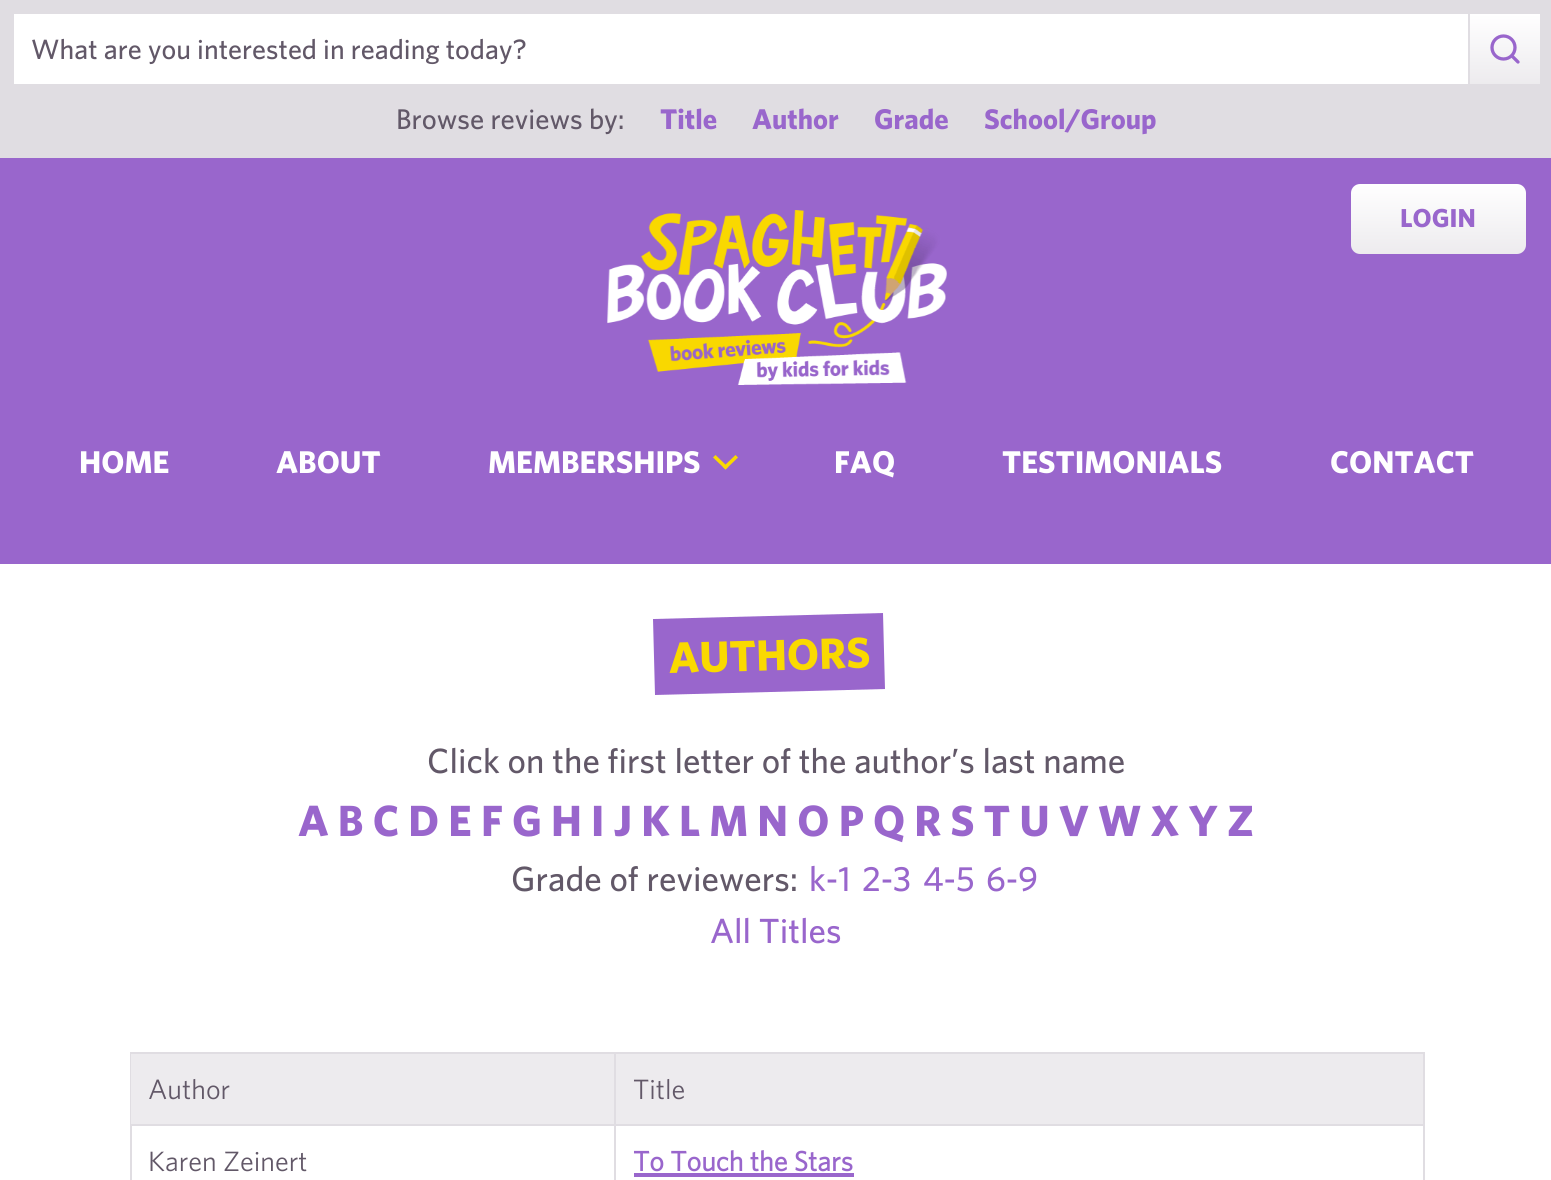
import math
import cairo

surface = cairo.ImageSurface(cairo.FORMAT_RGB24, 1551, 1180)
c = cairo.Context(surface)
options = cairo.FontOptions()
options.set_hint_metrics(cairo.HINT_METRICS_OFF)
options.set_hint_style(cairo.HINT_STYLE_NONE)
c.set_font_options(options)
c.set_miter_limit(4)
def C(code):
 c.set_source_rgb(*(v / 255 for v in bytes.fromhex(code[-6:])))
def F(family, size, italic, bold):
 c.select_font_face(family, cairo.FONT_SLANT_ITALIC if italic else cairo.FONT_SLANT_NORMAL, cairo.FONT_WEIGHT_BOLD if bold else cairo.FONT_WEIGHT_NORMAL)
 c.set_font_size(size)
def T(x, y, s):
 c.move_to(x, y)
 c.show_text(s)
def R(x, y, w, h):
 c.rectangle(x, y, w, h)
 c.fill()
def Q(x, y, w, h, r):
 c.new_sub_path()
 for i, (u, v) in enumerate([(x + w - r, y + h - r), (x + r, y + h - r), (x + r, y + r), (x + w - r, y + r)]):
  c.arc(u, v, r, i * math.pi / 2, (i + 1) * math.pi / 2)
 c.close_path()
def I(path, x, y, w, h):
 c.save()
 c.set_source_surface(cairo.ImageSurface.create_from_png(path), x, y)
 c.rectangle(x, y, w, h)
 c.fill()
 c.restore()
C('9966cc')
c.paint()
C('e0dde2')
R(0,0,1551,158)
C('ffffff')
R(14,14,1454,70)
F('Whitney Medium',28,0,0)
C('625868')
T(31,59,'What are you interested in reading today?')
gradient = cairo.LinearGradient(1471,84,1471,-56)
gradient.add_color_stop_rgba(0,0.929,0.922,0.933,1)
gradient.add_color_stop_rgba(.5,1,1,1,1)
c.set_source(gradient)
R(1470,14,70,70)
c.new_path()
c.arc(1503.5,47.5,11.5,0,2 * math.pi)
C('9966cc')
c.set_line_width(3.3)
c.stroke()
c.new_path()
c.move_to(1518,62)
c.line_to(1512,56)
c.set_line_cap(cairo.LINE_CAP_ROUND)
c.set_line_join(cairo.LINE_JOIN_ROUND)
c.stroke()
F('Whitney Medium',28.5,0,0)
C('625868')
T(396,129,'Browse reviews by:')
F('Whitney',28.5,0,1)
C('9966cc')
T(660,129,'Title')
T(752,129,'Author')
T(874,129,'Grade')
T(984,129,'School/Group')
gradient = cairo.LinearGradient(1352,254,1352,114)
gradient.add_color_stop_rgba(0,0.929,0.922,0.933,1)
gradient.add_color_stop_rgba(.5,1,1,1,1)
c.set_source(gradient)
Q(1351,184,175,70,9)
c.fill()
F('Whitney',26,0,1)
C('9966cc')
T(1400,227,'LOGIN')
F('Whitney',31.5,0,1)
C('ffffff')
T(79,473,'HOME')
T(276,473,'ABOUT')
T(488,473,'MEMBERSHIPS')
C('fad900')
c.new_path()
c.move_to(735.5,455)
c.line_to(738,457.5)
c.line_to(725.5,469.5)
c.line_to(723,467)
c.close_path()
c.fill()
c.new_path()
c.move_to(715.5,455)
c.line_to(728,467)
c.line_to(725.5,469.5)
c.line_to(713,457.5)
c.close_path()
c.fill()
C('ffffff')
T(834,473,'FAQ')
T(1002,473,'TESTIMONIALS')
T(1330,473,'CONTACT')
I('1.png',607,210,340,175)
R(0,564,1551,616)
C('9966cc')
c.new_path()
c.move_to(653,619)
c.line_to(883,613)
c.line_to(885,689)
c.line_to(655,695)
c.close_path()
c.fill()
F('Whitney',43.75,0,1)
C('fad900')
c.save()
c.translate(669,673)
c.rotate(-1.5 * math.pi / 180)
T(0,0,'AUTHORS')
c.restore()
F('Whitney Medium',35,0,0)
C('625868')
T(427,773,'Click on the first letter of the author’s last name')
F('Whitney',43.75,0,1)
C('9966cc')
T(298,836,'A B C D E F G H I J K L M N O P Q R S T U V W X Y Z')
F('Whitney Medium',35,0,0)
C('625868')
T(511,891,'Grade of reviewers:')
C('9966cc')
T(809,891,'k-1')
T(862,891,'2-3')
T(923,891,'4-5')
T(986,891,'6-9')
T(710,943,'All Titles')
c.rectangle(131,1053,1293,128)
C('e0dde2')
c.set_line_width(2)
c.set_line_cap(cairo.LINE_CAP_BUTT)
c.set_line_join(cairo.LINE_JOIN_MITER)
c.stroke()
C('edebee')
R(131,1054,483,70)
F('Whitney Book',28,0,0)
C('625868')
T(148,1099,'Author')
C('edebee')
R(616,1054,807,70)
C('e0dde2')
R(614,1054,2,70)
C('625868')
T(633,1099,'Title')
C('e0dde2')
R(131,1124,1292,2)
C('625868')
T(148,1171,'Karen Zeinert')
C('e0dde2')
R(614,1124,2,56)
F('Whitney Book',28,0,1)
C('9966cc')
T(633,1171,'To Touch the Stars')
R(634,1173,220,4)
surface.write_to_png('o.png')
